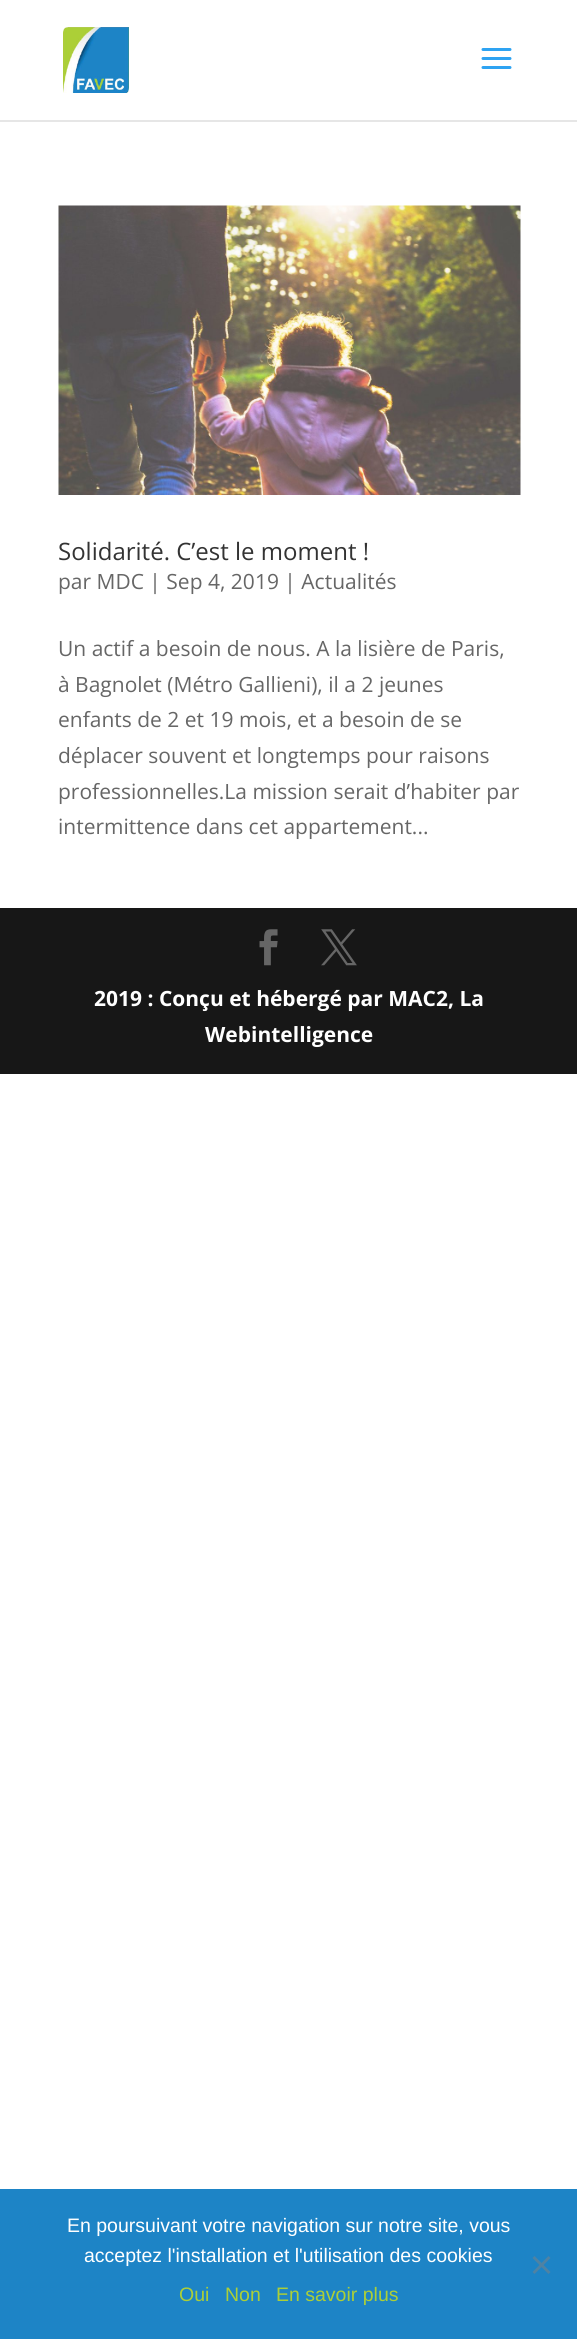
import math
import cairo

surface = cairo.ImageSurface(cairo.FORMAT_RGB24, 577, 2339)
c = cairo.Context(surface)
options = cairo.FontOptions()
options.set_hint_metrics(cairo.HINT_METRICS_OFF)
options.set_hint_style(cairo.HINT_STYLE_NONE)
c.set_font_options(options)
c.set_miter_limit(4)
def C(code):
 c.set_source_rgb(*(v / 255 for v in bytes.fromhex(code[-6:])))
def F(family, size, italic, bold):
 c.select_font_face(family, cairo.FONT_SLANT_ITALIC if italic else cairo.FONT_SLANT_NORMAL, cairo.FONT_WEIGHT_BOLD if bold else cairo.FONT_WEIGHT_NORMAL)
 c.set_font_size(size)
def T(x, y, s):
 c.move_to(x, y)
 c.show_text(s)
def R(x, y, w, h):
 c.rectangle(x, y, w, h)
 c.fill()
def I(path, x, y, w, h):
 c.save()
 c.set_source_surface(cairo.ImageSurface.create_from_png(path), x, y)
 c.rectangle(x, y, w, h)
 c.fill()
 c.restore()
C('ffffff')
c.paint()
C('e6e6e6')
c.new_path()
c.move_to(0,120)
c.line_to(0,122)
c.line_to(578,122)
c.line_to(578,2)
c.line_to(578,120)
c.close_path()
c.fill()
I('1.png',63,27,66,66)
I('2.png',481,48,31,21)
I('3.png',58,205,463,290)
F('Open Sans',24,0,0)
C('333333')
T(58,560,'Solidarité. C’est le moment !')
F('Open Sans',21,0,0)
C('666666')
T(58,589,'par MDC | Sep 4, 2019 | Actualités')
T(58,656,'Un actif a besoin de nous. A la lisière de Paris,')
T(58,692,'à Bagnolet (Métro Gallieni), il a 2 jeunes')
T(58,727,'enfants de 2 et 19 mois, et a besoin de se')
T(58,763,'déplacer souvent et longtemps pour raisons')
T(58,799,'professionnelles.La mission serait d’habiter par')
T(58,834,'intermittence dans cet appartement...')
C('171717')
R(0,908,577,166)
I('4.png',259,929,19,37)
I('5.png',321,929,36,37)
F('Open Sans',21,0,1)
C('ffffff')
T(94,1006,'2019 : Conçu et hébergé par MAC2, La')
T(205,1042,'Webintelligence')
C('1d84c6')
R(0,2189,577,150)
F('Liberation Sans',19.5,0,0)
C('ffffff')
T(67,2232,'En poursuivant votre navigation sur notre site, vous')
T(84,2262,'acceptez l\'installation et l\'utilisation des cookies')
C('4f82a3')
c.new_path()
c.move_to(548.5,2256)
c.line_to(550.5,2258)
c.line_to(534.5,2274)
c.line_to(532.5,2272)
c.close_path()
c.fill()
c.new_path()
c.move_to(532.5,2258)
c.line_to(534.5,2256)
c.line_to(550.5,2272)
c.line_to(548.5,2274)
c.close_path()
c.fill()
C('accf37')
T(179,2301,'Oui')
T(225,2301,'Non')
T(276,2301,'En savoir plus')
surface.write_to_png('o.png')
